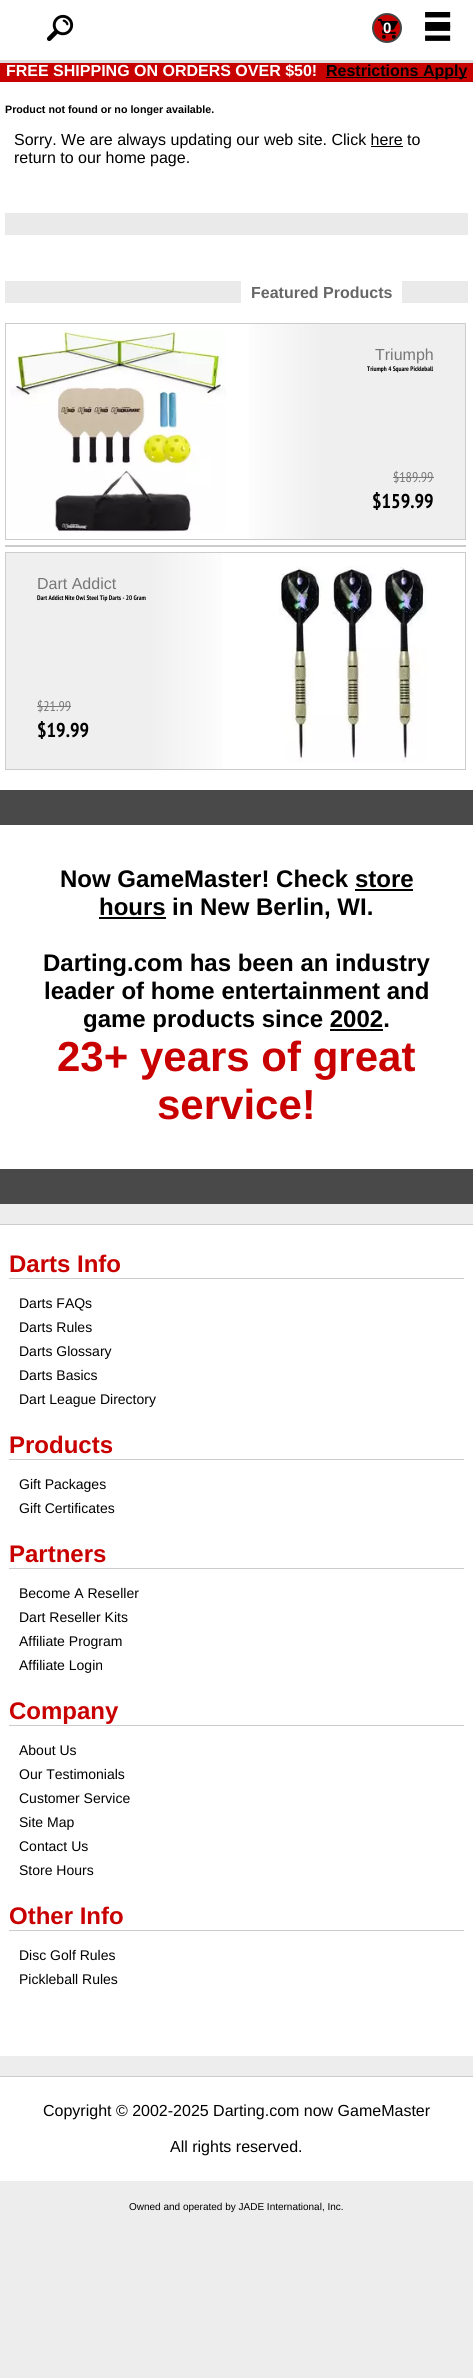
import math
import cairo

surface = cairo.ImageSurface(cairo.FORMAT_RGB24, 473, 2378)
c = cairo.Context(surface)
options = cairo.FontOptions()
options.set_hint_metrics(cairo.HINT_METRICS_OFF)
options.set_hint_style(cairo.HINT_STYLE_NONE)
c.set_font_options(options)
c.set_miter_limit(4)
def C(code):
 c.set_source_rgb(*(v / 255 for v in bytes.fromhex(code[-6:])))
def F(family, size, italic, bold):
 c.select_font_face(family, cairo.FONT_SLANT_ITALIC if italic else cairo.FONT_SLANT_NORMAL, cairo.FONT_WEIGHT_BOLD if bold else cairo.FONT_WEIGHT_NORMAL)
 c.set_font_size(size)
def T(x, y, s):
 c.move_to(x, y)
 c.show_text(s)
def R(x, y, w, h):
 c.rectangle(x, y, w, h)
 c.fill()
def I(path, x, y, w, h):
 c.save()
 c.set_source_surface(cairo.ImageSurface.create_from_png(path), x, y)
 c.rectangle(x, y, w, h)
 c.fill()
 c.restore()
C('ededed')
c.paint()
C('ffffff')
R(0,0,473,60)
C('dddddd')
R(0,60,473,3)
I('1.png',47,14,27,27)
C('c90000')
c.arc(387,28,14,0,2 * math.pi)
c.fill_preserve()
C('444444')
c.stroke()
I('2.png',378,19,20,20)
F('Liberation Sans',15,0,1)
C('ffffff')
T(383,33,'0')
F('Liberation Sans',50,0,1)
C('000000')
T(423,38,'=')
T(423,48,'=')
C('c90000')
R(0,63,473,19)
F('Liberation Sans',16,0,1)
C('ffffff')
T(6,76,'FREE SHIPPING ON ORDERS OVER $50!')
C('000000')
R(326,77,141,1)
T(326,76,'Restrictions Apply')
C('ffffff')
R(0,82,473,708)
F('Liberation Sans',10.7,0,1)
C('000000')
T(5,113,'Product not found or no longer available.')
F('Liberation Sans',16,0,0)
T(14,145,'Sorry. We are always updating our web site. Click here to')
R(371,146,32,1)
T(14,163,'return to our home page.')
C('eaeaea')
R(5,213,463,22)
R(5,281,463,22)
C('ffffff')
R(241,281,161,22)
F('Liberation Sans',16,0,1)
C('666666')
T(251,298,'Featured Products')
gradient = cairo.LinearGradient(5,432,466,432)
gradient.add_color_stop_rgba(.5,1,1,1,1)
gradient.add_color_stop_rgba(.69,0.937,0.937,0.937,1)
c.set_source(gradient)
R(249,324,216,215)
c.rectangle(5.5,323.5,460,216)
C('cccccc')
c.set_line_width(1)
c.stroke()
I('3.png',10,330,216,203)
F('Liberation Sans',16,0,0)
C('777777')
T(375,360,'Triumph')
F('PT Sans Narrow',6.6,0,1)
C('000000')
T(367,371,'Triumph 4 Square Pickleball')
F('PT Sans Narrow',14,0,0)
C('777777')
T(393,482,'$189.99')
R(393,477,41,1)
F('PT Sans Narrow',20,0,1)
C('000000')
T(372,508,'$159.99')
C('cccccc')
R(5,545,461,2)
gradient = cairo.LinearGradient(5,661,466,661)
gradient.add_color_stop_rgba(.31,0.937,0.937,0.937,1)
gradient.add_color_stop_rgba(.5,1,1,1,1)
c.set_source(gradient)
R(6,553,216,216)
c.rectangle(5.5,552.5,460,217)
C('cccccc')
c.stroke()
F('Liberation Sans',16,0,0)
C('777777')
T(37,589,'Dart Addict')
I('4.png',279,566,148,197)
F('PT Sans Narrow',6.6,0,1)
C('000000')
T(37,600,'Dart Addict Nite Owl Steel Tip Darts - 20 Gram')
F('PT Sans Narrow',14,0,0)
C('777777')
T(37,711,'$21.99')
R(37,706,34,1)
F('PT Sans Narrow',20,0,1)
C('000000')
T(37,737,'$19.99')
C('494949')
R(0,790,473,414)
C('ffffff')
R(0,825,473,344)
F('Liberation Sans',24,0,1)
C('000000')
T(60,887,'Now GameMaster! Check')
T(355,887,'store')
R(355,889,58,2)
T(99,915,'hours')
R(99,917,67,2)
T(172,915,'in New Berlin, WI.')
T(43,971,'Darting.com has been an industry')
T(44,999,'leader of home entertainment and')
T(83,1027,'game products since 2002.')
C('050505')
R(330,1029,53,2)
F('Liberation Sans',42,0,1)
C('c90000')
T(57,1071,'23+ years of great')
T(157,1119,'service!')
C('ffffff')
R(0,1225,473,831)
C('cccccc')
R(0,1224,473,1)
R(9,1278,455,1)
F('Liberation Sans',24,0,1)
C('c90000')
T(9,1272,'Darts Info')
F('Liberation Sans',14,0,0)
C('000000')
T(19,1308,'Darts FAQs')
T(19,1332,'Darts Rules')
T(19,1356,'Darts Glossary')
T(19,1380,'Darts Basics')
T(19,1404,'Dart League Directory')
C('cccccc')
R(9,1459,455,1)
F('Liberation Sans',24,0,1)
C('c90000')
T(9,1453,'Products')
F('Liberation Sans',14,0,0)
C('000000')
T(19,1489,'Gift Packages')
T(19,1513,'Gift Certificates')
C('cccccc')
R(9,1568,455,1)
F('Liberation Sans',24,0,1)
C('c90000')
T(9,1562,'Partners')
F('Liberation Sans',14,0,0)
C('000000')
T(19,1598,'Become A Reseller')
T(19,1622,'Dart Reseller Kits')
T(19,1646,'Affiliate Program')
T(19,1670,'Affiliate Login')
C('cccccc')
R(9,1725,455,1)
F('Liberation Sans',24,0,1)
C('c90000')
T(9,1719,'Company')
F('Liberation Sans',14,0,0)
C('000000')
T(19,1755,'About Us')
T(19,1779,'Our Testimonials')
T(19,1803,'Customer Service')
T(19,1827,'Site Map')
T(19,1851,'Contact Us')
T(19,1875,'Store Hours')
C('cccccc')
R(9,1930,455,1)
F('Liberation Sans',24,0,1)
C('c90000')
T(9,1924,'Other Info')
F('Liberation Sans',14,0,0)
C('000000')
T(19,1960,'Disc Golf Rules')
T(19,1984,'Pickleball Rules')
C('ffffff')
R(0,2077,473,104)
C('cccccc')
R(0,2076,473,1)
F('Liberation Sans',16,0,0)
C('000000')
T(43,2116,'Copyright © 2002-2025 Darting.com now GameMaster')
T(170,2152,'All rights reserved.')
F('Liberation Sans',10,0,0)
T(129,2210,'Owned and operated by JADE International, Inc.')
surface.write_to_png('o.png')
